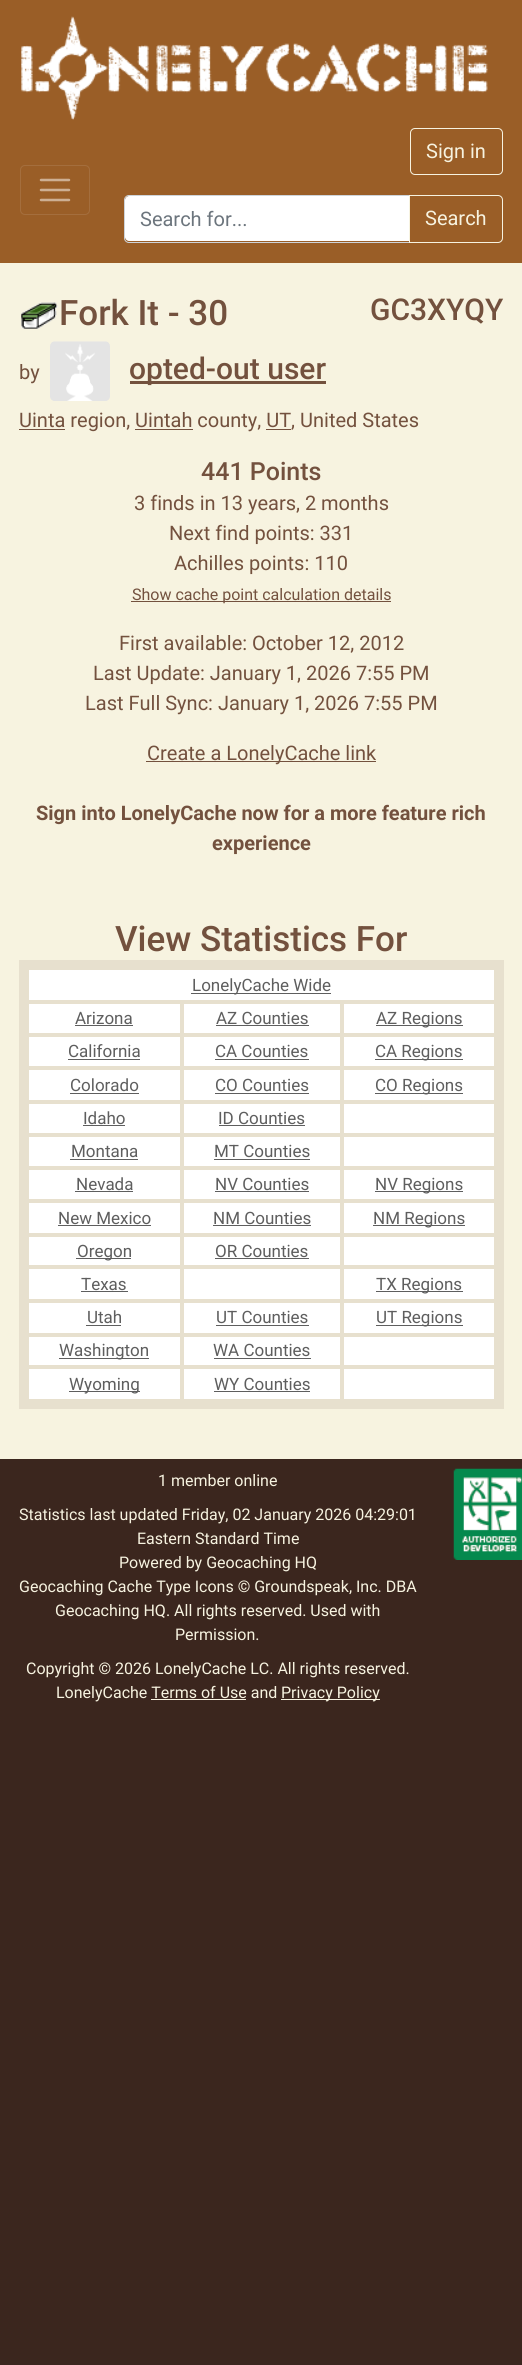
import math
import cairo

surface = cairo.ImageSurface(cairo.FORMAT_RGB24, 522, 2365)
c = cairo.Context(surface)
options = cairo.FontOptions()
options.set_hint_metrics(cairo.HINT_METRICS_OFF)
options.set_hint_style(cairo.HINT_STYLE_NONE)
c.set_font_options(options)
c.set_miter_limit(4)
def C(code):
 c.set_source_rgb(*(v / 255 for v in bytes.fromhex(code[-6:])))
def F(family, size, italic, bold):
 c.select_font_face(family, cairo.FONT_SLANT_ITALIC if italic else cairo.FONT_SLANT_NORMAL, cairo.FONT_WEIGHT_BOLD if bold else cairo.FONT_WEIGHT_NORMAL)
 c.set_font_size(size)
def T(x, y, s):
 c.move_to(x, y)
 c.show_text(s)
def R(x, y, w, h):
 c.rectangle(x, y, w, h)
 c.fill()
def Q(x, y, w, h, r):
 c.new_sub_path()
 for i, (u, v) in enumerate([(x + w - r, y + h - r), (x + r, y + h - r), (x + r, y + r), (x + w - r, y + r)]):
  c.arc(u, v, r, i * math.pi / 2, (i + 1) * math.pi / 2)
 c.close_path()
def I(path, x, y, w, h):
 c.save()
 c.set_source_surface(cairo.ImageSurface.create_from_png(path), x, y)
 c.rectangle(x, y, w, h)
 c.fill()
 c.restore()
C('3b261e')
c.paint()
C('9a5e27')
R(0,0,522,263)
I('1.png',21,16,467,104)
Q(20.5,165.5,69,49,4.5)
C('a46e3d')
c.set_line_width(1)
c.stroke()
c.new_path()
c.move_to(41,180)
c.line_to(69,180)
c.move_to(41,190)
c.line_to(69,190)
c.move_to(41,200)
c.line_to(69,200)
C('cdaf93')
c.set_line_width(2.5)
c.set_line_cap(cairo.LINE_CAP_ROUND)
c.stroke()
Q(410.5,128.5,92,46,4.5)
C('f7f3e0')
c.set_line_width(1)
c.set_line_cap(cairo.LINE_CAP_BUTT)
c.stroke()
F('Roboto',20,0,0)
T(426,158,'Sign in')
C('ffffff')
c.new_path()
c.move_to(129,196)
c.line_to(409,196)
c.line_to(409,241)
c.line_to(129,241)
c.curve_to(127,241,125,239,125,237)
c.line_to(125,200)
c.curve_to(125,198,127,196,129,196)
c.close_path()
c.fill()
c.new_path()
c.move_to(129,195.5)
c.line_to(409.5,195.5)
c.line_to(409.5,242.5)
c.line_to(129,242.5)
c.curve_to(126.5,242.5,124.5,240.5,124.5,238)
c.line_to(124.5,200)
c.curve_to(124.5,197.5,126.5,195.5,129,195.5)
c.close_path()
C('ced4da')
c.stroke()
C('6c757d')
T(140,226,'Search for...')
C('9a5e27')
c.new_path()
c.move_to(409.5,195.5)
c.line_to(498,195.5)
c.curve_to(500.5,195.5,502.5,197.5,502.5,200)
c.line_to(502.5,238)
c.curve_to(502.5,240.5,500.5,242.5,498,242.5)
c.line_to(409.5,242.5)
c.close_path()
c.fill_preserve()
C('f7f3e0')
c.stroke()
T(425,225,'Search')
R(0,263,522,1196)
I('2.png',21,302,37,27)
F('Roboto Medium',35,0,0)
C('73513e')
T(59,325,'Fork It - 30')
F('Roboto Medium',30,0,0)
T(370,320,'GC3XYQY')
F('Roboto',20,0,0)
T(19,379,'by')
I('3.png',50,341,60,60)
R(130,381,196,3)
F('Roboto Medium',30,0,0)
T(129,379,'opted-out user')
R(19,429,46,1)
F('Roboto',20,0,0)
T(19,427,'Uinta region, Uintah county, UT, United States')
R(135,429,58,1)
R(266,429,25,1)
F('Roboto Medium',25,0,0)
T(201,480,'441 Points')
F('Roboto',20,0,0)
T(134,510,'3 finds in 13 years, 2 months')
T(169,540,'Next find points: 331')
T(174,570,'Achilles points: 110')
R(131,601,260,1)
F('Roboto',16,0,0)
T(132,600,'Show cache point calculation details')
F('Roboto',20,0,0)
T(119,650,'First available: October 12, 2012')
T(93,680,'Last Update: January 1, 2026 7:55 PM')
T(85,710,'Last Full Sync: January 1, 2026 7:55 PM')
R(146,761,230,1)
T(147,760,'Create a LonelyCache link')
F('Roboto',20,0,1)
T(36,820,'Sign into LonelyCache now for a more feature rich')
T(212,850,'experience')
F('Roboto Medium',35,0,0)
T(115,951,'View Statistics For')
C('ffffff')
R(29,970,465,429)
C('e7e0ce')
R(29,960,465,10)
R(340,1000,161,4)
R(340,1033,161,4)
R(340,1066,161,4)
R(340,1100,161,4)
R(340,1133,161,4)
R(340,1166,161,4)
R(340,1199,161,4)
R(340,1233,161,4)
R(340,1265,161,4)
R(340,1299,161,4)
R(340,1333,161,4)
R(340,1365,161,4)
R(494,960,10,439)
R(340,1365,4,40)
R(180,1365,164,4)
R(180,1365,4,40)
R(29,1399,475,10)
R(340,1333,4,36)
R(180,1333,164,4)
R(340,1299,4,37)
R(180,1299,164,4)
R(340,1265,4,38)
R(180,1265,164,4)
R(340,1233,4,36)
R(180,1233,164,4)
R(340,1199,4,37)
R(180,1199,164,4)
R(340,1166,4,37)
R(180,1166,164,4)
R(340,1133,4,37)
R(180,1133,164,4)
R(340,1100,4,36)
R(180,1100,164,4)
R(340,1066,4,38)
R(180,1066,164,4)
R(340,1033,4,37)
R(180,1033,164,4)
R(340,1000,4,36)
R(180,1000,164,4)
R(23,1365,161,4)
R(180,1333,4,36)
R(23,1333,161,4)
R(180,1299,4,37)
R(23,1299,161,4)
R(180,1265,4,38)
R(23,1265,161,4)
R(180,1233,4,36)
R(23,1233,161,4)
R(180,1199,4,37)
R(23,1199,161,4)
R(180,1166,4,37)
R(23,1166,161,4)
R(180,1133,4,37)
R(23,1133,161,4)
R(180,1100,4,36)
R(23,1100,161,4)
R(180,1066,4,38)
R(23,1066,161,4)
R(180,1033,4,37)
R(23,1033,161,4)
R(180,1000,4,36)
R(23,1000,161,4)
R(19,960,10,449)
C('5e5e5e')
R(191,993,140,1)
F('Roboto',17,0,0)
T(192,991,'LonelyCache Wide')
T(75,1024,'Arizona')
R(75,1025,58,1)
T(216,1024,'AZ Counties')
R(216,1025,93,1)
R(376,1025,87,1)
T(376,1024,'AZ Regions')
T(68,1057,'California')
R(68,1059,72,1)
T(215,1057,'CA Counties')
R(215,1059,94,1)
R(375,1059,88,1)
T(375,1057,'CA Regions')
T(70,1091,'Colorado')
R(70,1093,69,1)
T(215,1091,'CO Counties')
R(215,1093,94,1)
R(375,1093,88,1)
T(375,1091,'CO Regions')
T(83,1124,'Idaho')
R(83,1125,42,1)
T(218,1124,'ID Counties')
R(219,1125,86,1)
T(71,1157,'Montana')
R(70,1159,68,1)
T(214,1157,'MT Counties')
R(214,1159,96,1)
T(76,1190,'Nevada')
R(75,1191,58,1)
T(215,1190,'NV Counties')
R(215,1191,94,1)
R(375,1191,88,1)
T(375,1190,'NV Regions')
T(58,1224,'New Mexico')
R(58,1225,93,1)
T(213,1224,'NM Counties')
R(213,1225,98,1)
R(373,1225,92,1)
T(373,1224,'NM Regions')
R(76,1258,55,1)
T(77,1257,'Oregon')
T(215,1257,'OR Counties')
R(215,1258,94,1)
T(81,1290,'Texas')
R(81,1291,47,1)
R(376,1291,87,1)
T(376,1290,'TX Regions')
T(87,1323,'Utah')
R(86,1325,35,1)
T(216,1323,'UT Counties')
R(216,1325,93,1)
R(376,1325,87,1)
T(376,1323,'UT Regions')
R(59,1358,90,1)
T(59,1356,'Washington')
T(213,1356,'WA Counties')
R(214,1358,97,1)
R(69,1391,71,1)
T(69,1390,'Wyoming')
T(214,1390,'WY Counties')
R(214,1391,96,1)
F('Roboto',16,0,0)
C('f7f3e0')
T(158,1486,'1 member online')
T(19,1520,'Statistics last updated Friday, 02 January 2026 04:29:01')
T(137,1544,'Eastern Standard Time')
T(119,1568,'Powered by Geocaching HQ')
T(19,1592,'Geocaching Cache Type Icons © Groundspeak, Inc. DBA')
T(55,1616,'Geocaching HQ. All rights reserved. Used with')
T(175,1640,'Permission.')
T(26,1674,'Copyright © 2026 LonelyCache LC. All rights reserved.')
T(56,1698,'LonelyCache Terms of Use and')
R(281,1699,99,1)
T(281,1698,'Privacy Policy')
R(151,1699,95,1)
I('4.png',453,1468,69,92)
surface.write_to_png('o.png')
